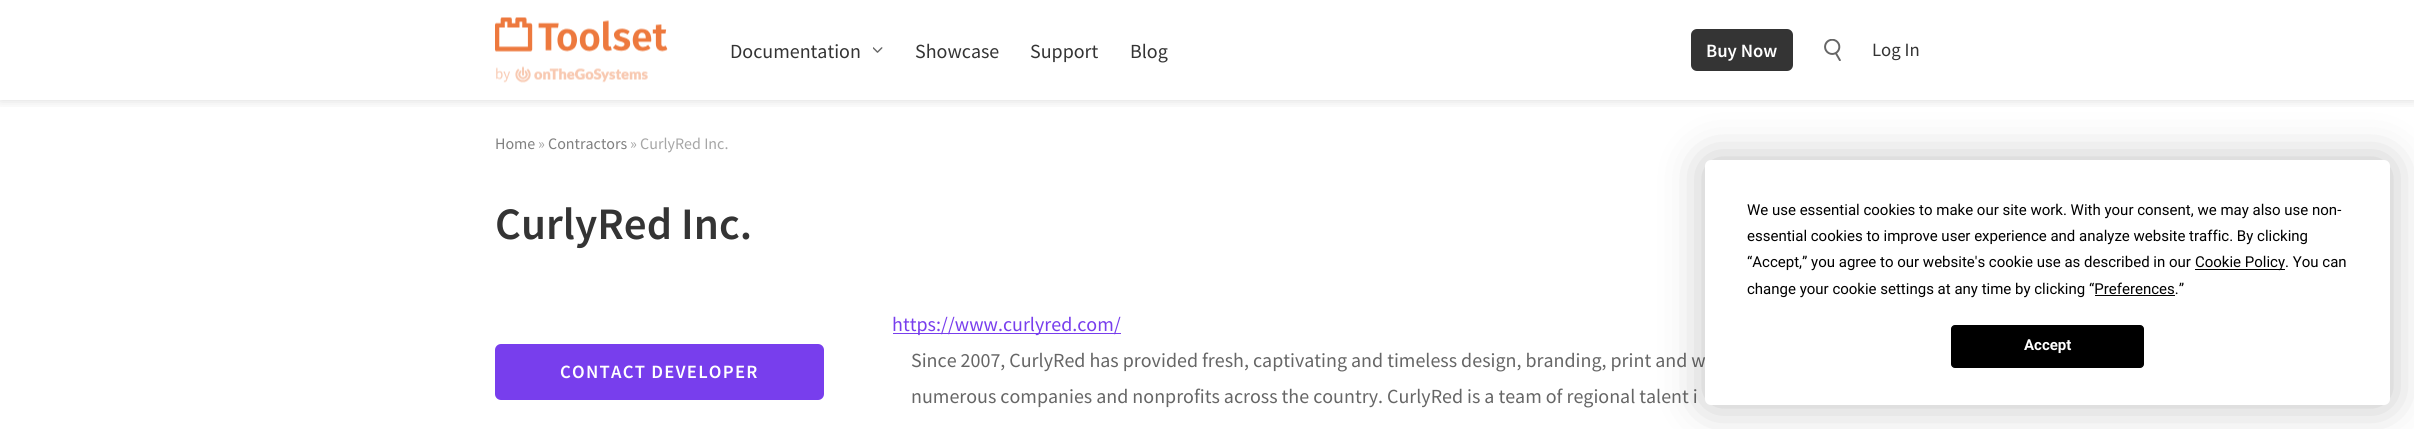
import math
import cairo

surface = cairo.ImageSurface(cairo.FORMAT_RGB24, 2414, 429)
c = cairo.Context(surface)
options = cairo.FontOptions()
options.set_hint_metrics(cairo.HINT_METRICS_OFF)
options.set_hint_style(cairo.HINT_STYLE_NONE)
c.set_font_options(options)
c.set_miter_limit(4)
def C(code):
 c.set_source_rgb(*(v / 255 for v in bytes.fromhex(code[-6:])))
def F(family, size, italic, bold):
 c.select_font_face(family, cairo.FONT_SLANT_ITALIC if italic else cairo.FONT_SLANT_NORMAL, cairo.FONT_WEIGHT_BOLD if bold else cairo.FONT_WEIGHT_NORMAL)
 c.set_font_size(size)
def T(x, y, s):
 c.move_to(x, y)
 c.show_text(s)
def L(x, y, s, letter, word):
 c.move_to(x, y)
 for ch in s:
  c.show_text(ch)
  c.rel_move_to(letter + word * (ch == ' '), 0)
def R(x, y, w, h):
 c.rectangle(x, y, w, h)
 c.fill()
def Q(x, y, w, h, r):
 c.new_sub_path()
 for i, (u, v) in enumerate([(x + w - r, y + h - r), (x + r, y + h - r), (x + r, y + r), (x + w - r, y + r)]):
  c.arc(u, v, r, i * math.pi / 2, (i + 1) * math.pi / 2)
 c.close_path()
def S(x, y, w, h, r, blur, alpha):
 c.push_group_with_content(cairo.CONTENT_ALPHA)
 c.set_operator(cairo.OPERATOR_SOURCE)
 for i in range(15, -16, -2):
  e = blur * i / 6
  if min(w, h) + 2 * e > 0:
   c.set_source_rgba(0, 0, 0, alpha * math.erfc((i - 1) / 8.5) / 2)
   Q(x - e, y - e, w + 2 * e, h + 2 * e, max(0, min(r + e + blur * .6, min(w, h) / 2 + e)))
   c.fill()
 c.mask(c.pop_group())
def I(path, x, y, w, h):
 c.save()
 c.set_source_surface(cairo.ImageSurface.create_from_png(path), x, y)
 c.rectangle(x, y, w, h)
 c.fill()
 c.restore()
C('ffffff')
c.paint()
c.save()
c.rectangle(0,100,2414,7)
c.clip()
C('000000')
S(0,0,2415,100,0,6,.15)
c.restore()
I('1.png',495,17,173,66)
I('2.png',873,47,10,6)
F('Source Sans Pro',20,0,0)
C('343434')
T(730,58,'Documentation')
T(915,58,'Showcase')
T(1030,58,'Support')
T(1130,58,'Blog')
Q(1691,29,102,42,6)
c.fill()
F('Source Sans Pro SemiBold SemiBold',18.75,0,0)
C('ffffff')
T(1706,57,'Buy Now')
I('3.png',1824,39,17,22)
F('Source Sans Pro',18.75,0,0)
C('343434')
T(1872,56,'Log In')
F('Source Sans Pro',16,0,0)
C('808080')
T(495,149,'Home')
C('a6a6a6')
T(538,149,'»')
C('808080')
T(548,149,'Contractors')
C('a6a6a6')
T(630,149,'» CurlyRed Inc.')
F('Source Sans Pro SemiBold SemiBold',45,0,0)
C('343434')
T(495,239,'CurlyRed Inc.')
C('783eed')
Q(495,344,329,56,6)
c.fill()
F('Source Sans Pro SemiBold SemiBold',18.75,0,0)
C('ffffff')
L(560,378,'CONTACT DEVELOPER',1.25,0)
C('783eed')
R(893,333,228,1)
F('Source Sans Pro',20,0,0)
T(892,331,'https://www.curlyred.com/')
C('666666')
T(911,367,'Since 2007, CurlyRed has provided fresh, captivating and timeless design, branding, print and w')
T(911,403,'numerous companies and nonprofits across the country. CurlyRed is a team of regional talent i')
C('000000')
S(1705,160,685,245,6,22,.25)
C('ffffff')
Q(1705,160,685,245,6)
c.fill()
F('Roboto',15,0,0)
C('000000')
T(1747,215,'We use essential cookies to make our site work. With your consent, we may also use non-')
T(1747,241,'essential cookies to improve user experience and analyze website traffic. By clicking')
T(1747,267,'“Accept,” you agree to our website\'s cookie use as described in our')
R(2195,269,90,1)
T(2195,267,'Cookie Policy. You can')
T(1747,294,'change your cookie settings at any time by clicking “Preferences.”')
R(2095,295,80,1)
Q(1951.5,325.5,192,42,3.5)
c.fill_preserve()
c.set_line_width(1)
c.stroke()
F('Roboto',15,0,1)
C('ffffff')
T(2024,350,'Accept')
surface.write_to_png('o.png')
